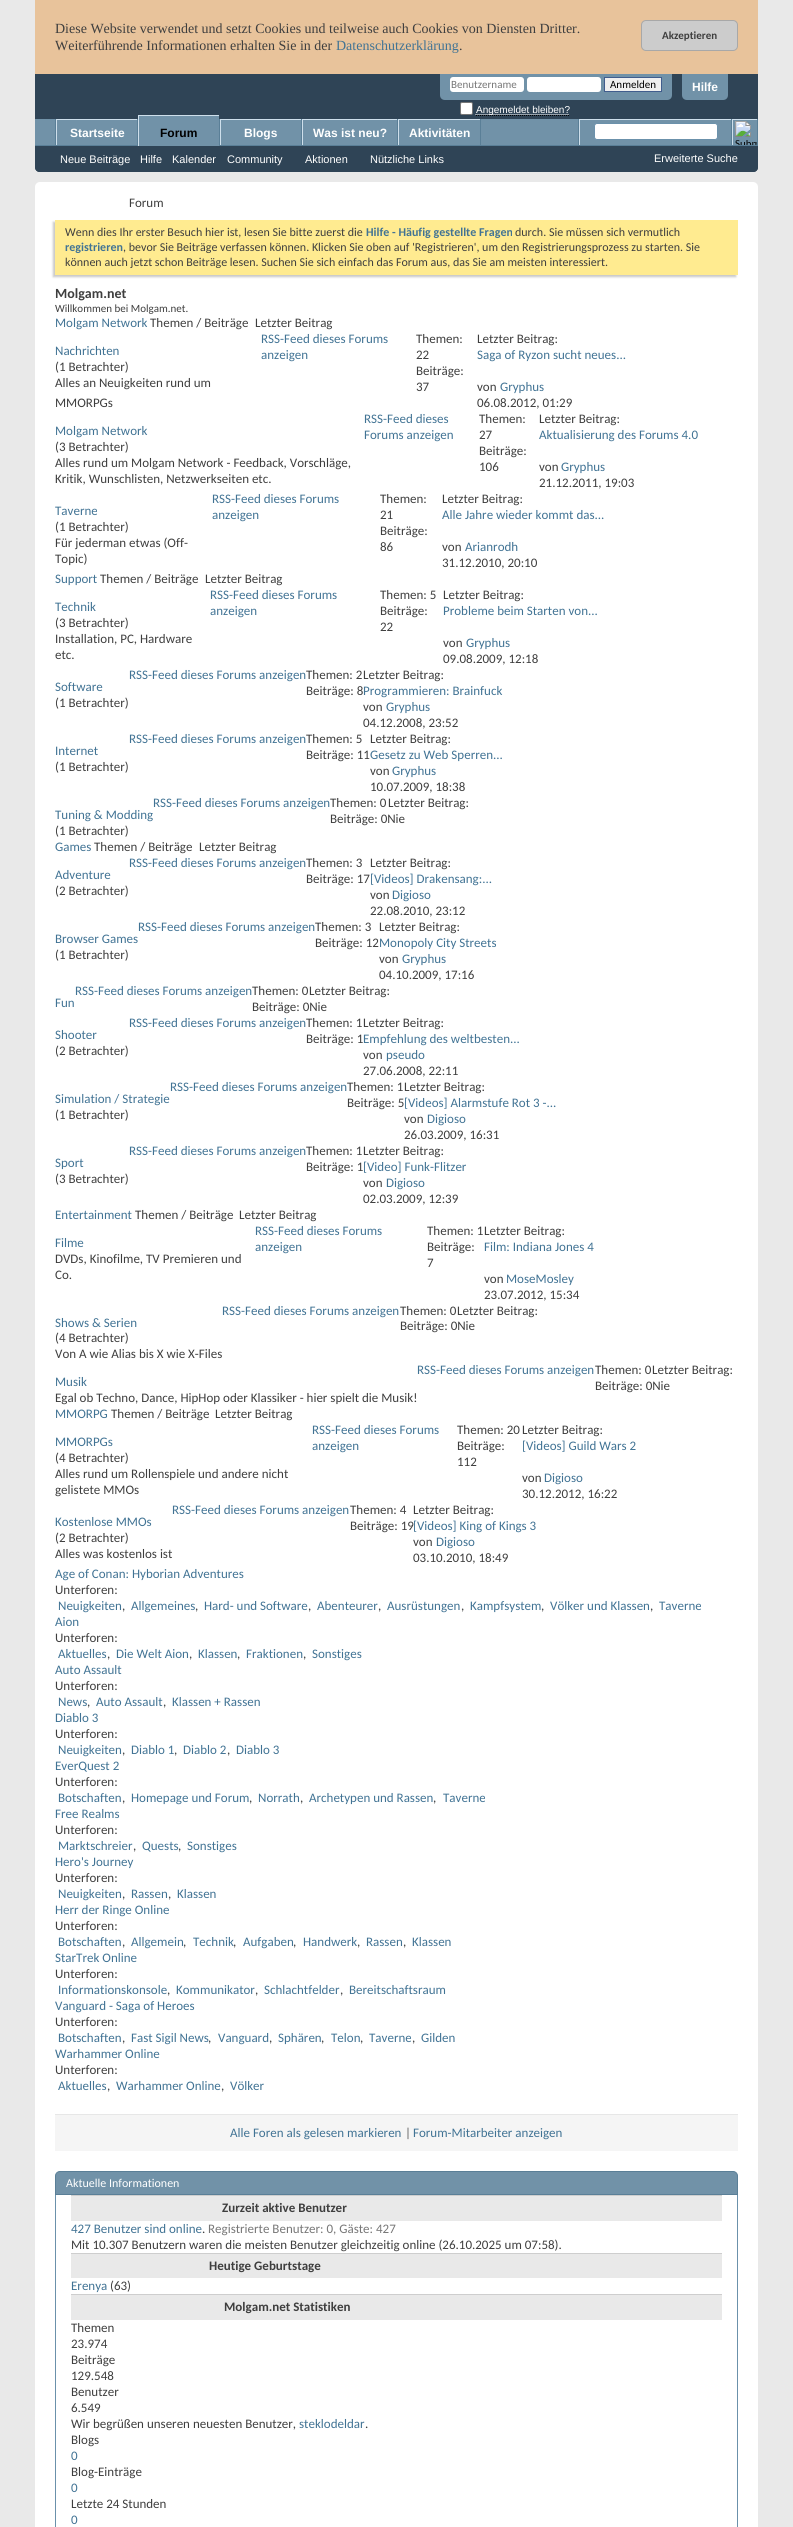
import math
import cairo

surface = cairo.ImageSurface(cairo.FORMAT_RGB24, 793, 2527)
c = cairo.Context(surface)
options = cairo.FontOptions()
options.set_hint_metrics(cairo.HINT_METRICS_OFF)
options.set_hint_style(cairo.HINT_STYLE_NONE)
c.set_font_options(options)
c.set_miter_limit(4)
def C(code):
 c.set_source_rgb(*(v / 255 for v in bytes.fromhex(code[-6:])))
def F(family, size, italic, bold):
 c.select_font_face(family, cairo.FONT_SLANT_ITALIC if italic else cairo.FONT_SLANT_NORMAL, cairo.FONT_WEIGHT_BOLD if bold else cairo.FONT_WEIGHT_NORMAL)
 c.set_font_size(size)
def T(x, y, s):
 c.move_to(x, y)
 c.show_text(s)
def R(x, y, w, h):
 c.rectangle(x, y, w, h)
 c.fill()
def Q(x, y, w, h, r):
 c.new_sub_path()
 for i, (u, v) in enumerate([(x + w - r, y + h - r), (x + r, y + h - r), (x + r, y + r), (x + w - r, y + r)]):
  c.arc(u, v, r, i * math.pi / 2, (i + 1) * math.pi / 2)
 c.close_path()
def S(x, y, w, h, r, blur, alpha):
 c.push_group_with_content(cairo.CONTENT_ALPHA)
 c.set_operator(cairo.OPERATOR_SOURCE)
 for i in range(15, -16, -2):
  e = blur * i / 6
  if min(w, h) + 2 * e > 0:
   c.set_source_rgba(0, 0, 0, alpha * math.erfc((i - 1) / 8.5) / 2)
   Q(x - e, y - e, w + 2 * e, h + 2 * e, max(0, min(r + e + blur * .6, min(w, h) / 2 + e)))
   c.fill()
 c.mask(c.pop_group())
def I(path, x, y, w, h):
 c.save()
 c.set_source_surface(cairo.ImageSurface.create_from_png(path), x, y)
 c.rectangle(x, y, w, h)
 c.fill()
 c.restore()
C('e9e9e9')
c.paint()
C('e8c39b')
R(35,0,723,74)
F('Liberation Serif',14,0,0)
C('3e3e3e')
T(55,33,'Diese Website verwendet und setzt Cookies und teilweise auch Cookies von Diensten Dritter.')
T(55,50,'Weiterführende Informationen erhalten Sie in der')
C('417394')
T(336,50,'Datenschutzerklärung')
C('3e3e3e')
T(459,50,'.')
C('cccccc')
Q(641.5,20.5,96,30,4.5)
c.fill_preserve()
C('a8a8a8')
c.set_line_width(1)
c.stroke()
F('Carlito',11,0,1)
C('3e3e3e')
T(662,39,'Akzeptieren')
C('2f4456')
c.new_path()
c.move_to(35,74)
c.line_to(758,74)
c.line_to(758,167)
c.curve_to(758,170,756,172,753,172)
c.line_to(40,172)
c.curve_to(37,172,35,170,35,167)
c.close_path()
c.fill()
C('7192a8')
c.new_path()
c.move_to(440,74)
c.line_to(672,74)
c.line_to(672,95)
c.curve_to(672,98,670,100,667,100)
c.line_to(445,100)
c.curve_to(442,100,440,98,440,95)
c.close_path()
c.fill()
C('ffffff')
Q(450,77,74,15,3)
c.fill()
F('Carlito',11,0,0)
C('777777')
T(451,88,'Benutzername')
C('ffffff')
Q(527,77,74,15,3)
c.fill()
C('efefef')
c.rectangle(604.5,77.5,57,14)
c.fill_preserve()
C('415d8d')
c.stroke()
C('000000')
T(610,88,'Anmelden')
C('ffffff')
Q(460.5,102.5,12,12,1.5)
c.fill_preserve()
C('767676')
c.stroke()
c.new_path()
c.move_to(476,115.5)
c.line_to(570,115.5)
C('000000')
c.set_dash([1,1])
c.stroke()
c.new_path()
c.move_to(475.5,114.5)
c.line_to(569.5,114.5)
C('ffffff')
c.stroke()
F('Liberation Sans',10,0,0)
T(476,113,'Angemeldet bleiben?')
C('7192a8')
c.new_path()
c.move_to(682,74)
c.line_to(728,74)
c.line_to(728,95)
c.curve_to(728,98,726,100,723,100)
c.line_to(687,100)
c.curve_to(684,100,682,98,682,95)
c.close_path()
c.fill()
F('Liberation Sans',12,0,1)
C('ffffff')
T(692,91,'Hilfe')
C('2f4456')
c.new_path()
c.move_to(35,119)
c.line_to(758,119)
c.line_to(758,167)
c.curve_to(758,170,756,172,753,172)
c.line_to(40,172)
c.curve_to(37,172,35,170,35,167)
c.close_path()
c.fill()
C('7192a8')
R(35,119,722,26)
C('5a7f97')
R(137,119,1,27)
R(55,119,1,27)
C('cedfeb')
R(56,119,81,1)
R(56,119,1,27)
C('ffffff')
T(70,137,'Startseite')
C('5a7f97')
R(219,119,1,26)
R(301,119,1,27)
C('cedfeb')
R(220,119,81,1)
R(220,119,1,27)
C('5a7f97')
R(397,119,1,27)
C('cedfeb')
R(302,119,95,1)
R(302,119,1,27)
C('5a7f97')
R(480,119,1,27)
C('cedfeb')
R(398,119,82,1)
R(398,119,1,27)
C('5a7f97')
R(35,145,723,1)
C('7192a8')
R(139,116,80,30)
C('cedfeb')
R(138,115,81,1)
R(138,115,1,31)
C('000000')
T(160,137,'Forum')
C('ffffff')
T(244,137,'Blogs')
T(313,137,'Was ist neu?')
T(409,137,'Aktivitäten')
F('Liberation Sans',11,0,0)
T(60,163,'Neue Beiträge')
T(140,163,'Hilfe')
T(172,163,'Kalender')
T(227,163,'Community')
T(305,163,'Aktionen')
T(370,163,'Nützliche Links')
C('5a7f97')
R(578,119,1,26)
C('cedfeb')
R(579,119,152,1)
R(579,119,1,26)
C('ffffff')
Q(594.5,123.5,123,16,2.5)
c.fill_preserve()
C('6b91ab')
c.set_dash([])
c.stroke()
C('5a7f97')
R(757,119,1,26)
R(731,119,1,26)
C('cedfeb')
R(732,119,25,1)
R(732,119,1,26)
I('1.png',735,121,22,24)
C('ffffff')
T(654,162,'Erweiterte Suche')
Q(35,182,723,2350,5)
c.fill()
F('Carlito',13,0,0)
C('3e3e3e')
T(129,207,'Forum')
C('c8c8c8')
S(53,222,683,55,0,1,1)
C('ffeb90')
R(55,220,683,55)
F('Carlito',12,0,0)
C('3e3e3e')
T(65,236,'Wenn dies Ihr erster Besuch hier ist, lesen Sie bitte zuerst die')
F('Carlito',12,0,1)
C('417394')
T(366,236,'Hilfe - Häufig gestellte Fragen')
F('Carlito',12,0,0)
C('3e3e3e')
T(515,236,'durch. Sie müssen sich vermutlich')
F('Carlito',12,0,1)
C('417394')
T(65,251,'registrieren')
F('Carlito',12,0,0)
C('3e3e3e')
T(123,251,', bevor Sie Beiträge verfassen können. Klicken Sie oben auf \'Registrieren\', um den Registrierungsprozess zu starten. Sie')
T(65,266,'können auch jetzt schon Beiträge lesen. Suchen Sie sich einfach das Forum aus, das Sie am meisten interessiert.')
F('Carlito',14,0,1)
T(55,298,'Molgam.net')
F('Carlito',11,0,0)
T(55,312,'Willkommen bei Molgam.net.')
F('Carlito',13,0,0)
C('417394')
T(55,327,'Molgam Network')
C('3e3e3e')
T(150,327,'Themen / Beiträge')
T(255,327,'Letzter Beitrag')
C('417394')
T(55,355,'Nachrichten')
C('3e3e3e')
T(55,371,'(1 Betrachter)')
T(55,387,'Alles an Neuigkeiten rund um')
T(55,407,'MMORPGs')
C('417394')
T(261,343,'RSS-Feed dieses Forums')
T(261,359,'anzeigen')
C('3e3e3e')
T(416,343,'Themen:')
T(416,359,'22')
T(416,375,'Beiträge:')
T(416,391,'37')
T(477,343,'Letzter Beitrag:')
C('417394')
T(477,359,'Saga of Ryzon sucht neues...')
C('3e3e3e')
T(477,391,'von')
C('417394')
T(500,391,'Gryphus')
C('3e3e3e')
T(477,407,'06.08.2012, 01:29')
C('417394')
T(55,435,'Molgam Network')
C('3e3e3e')
T(55,451,'(3 Betrachter)')
T(55,467,'Alles rund um Molgam Network - Feedback, Vorschläge,')
T(55,483,'Kritik, Wunschlisten, Netzwerkseiten etc.')
C('417394')
T(364,423,'RSS-Feed dieses')
T(364,439,'Forums anzeigen')
C('3e3e3e')
T(479,423,'Themen:')
T(479,439,'27')
T(479,455,'Beiträge:')
T(479,471,'106')
T(539,423,'Letzter Beitrag:')
C('417394')
T(539,439,'Aktualisierung des Forums 4.0')
C('3e3e3e')
T(539,471,'von')
C('417394')
T(561,471,'Gryphus')
C('3e3e3e')
T(539,487,'21.12.2011, 19:03')
C('417394')
T(55,515,'Taverne')
C('3e3e3e')
T(55,531,'(1 Betrachter)')
T(55,547,'Für jederman etwas (Off-')
T(55,563,'Topic)')
C('417394')
T(212,503,'RSS-Feed dieses Forums')
T(212,519,'anzeigen')
C('3e3e3e')
T(380,503,'Themen:')
T(380,519,'21')
T(380,535,'Beiträge:')
T(380,551,'86')
T(442,503,'Letzter Beitrag:')
C('417394')
T(442,519,'Alle Jahre wieder kommt das...')
C('3e3e3e')
T(442,551,'von')
C('417394')
T(465,551,'Arianrodh')
C('3e3e3e')
T(442,567,'31.12.2010, 20:10')
C('417394')
T(55,583,'Support')
C('3e3e3e')
T(100,583,'Themen / Beiträge')
T(205,583,'Letzter Beitrag')
C('417394')
T(55,611,'Technik')
C('3e3e3e')
T(55,627,'(3 Betrachter)')
T(55,643,'Installation, PC, Hardware')
T(55,659,'etc.')
C('417394')
T(210,599,'RSS-Feed dieses Forums')
T(210,615,'anzeigen')
C('3e3e3e')
T(380,599,'Themen: 5')
T(380,615,'Beiträge:')
T(380,631,'22')
T(443,599,'Letzter Beitrag:')
C('417394')
T(443,615,'Probleme beim Starten von...')
C('3e3e3e')
T(443,647,'von')
C('417394')
T(466,647,'Gryphus')
C('3e3e3e')
T(443,663,'09.08.2009, 12:18')
C('417394')
T(55,691,'Software')
C('3e3e3e')
T(55,707,'(1 Betrachter)')
C('417394')
T(129,679,'RSS-Feed dieses Forums anzeigen')
C('3e3e3e')
T(306,679,'Themen: 2')
T(306,695,'Beiträge: 8')
T(363,679,'Letzter Beitrag:')
C('417394')
T(363,695,'Programmieren: Brainfuck')
C('3e3e3e')
T(363,711,'von')
C('417394')
T(386,711,'Gryphus')
C('3e3e3e')
T(363,727,'04.12.2008, 23:52')
C('417394')
T(55,755,'Internet')
C('3e3e3e')
T(55,771,'(1 Betrachter)')
C('417394')
T(129,743,'RSS-Feed dieses Forums anzeigen')
C('3e3e3e')
T(306,743,'Themen: 5')
T(306,759,'Beiträge: 11')
T(370,743,'Letzter Beitrag:')
C('417394')
T(370,759,'Gesetz zu Web Sperren...')
C('3e3e3e')
T(370,775,'von')
C('417394')
T(392,775,'Gryphus')
C('3e3e3e')
T(370,791,'10.07.2009, 18:38')
C('417394')
T(153,807,'RSS-Feed dieses Forums anzeigen')
C('3e3e3e')
T(330,807,'Themen: 0')
T(330,823,'Beiträge: 0Nie')
T(388,807,'Letzter Beitrag:')
C('417394')
T(55,819,'Tuning & Modding')
C('3e3e3e')
T(55,835,'(1 Betrachter)')
C('417394')
T(55,851,'Games')
C('3e3e3e')
T(94,851,'Themen / Beiträge')
T(199,851,'Letzter Beitrag')
C('417394')
T(55,879,'Adventure')
C('3e3e3e')
T(55,895,'(2 Betrachter)')
C('417394')
T(129,867,'RSS-Feed dieses Forums anzeigen')
C('3e3e3e')
T(306,867,'Themen: 3')
T(306,883,'Beiträge: 17')
T(370,867,'Letzter Beitrag:')
C('417394')
T(370,883,'[Videos] Drakensang:...')
C('3e3e3e')
T(370,899,'von')
C('417394')
T(392,899,'Digioso')
C('3e3e3e')
T(370,915,'22.08.2010, 23:12')
C('417394')
T(55,943,'Browser Games')
C('3e3e3e')
T(55,959,'(1 Betrachter)')
C('417394')
T(138,931,'RSS-Feed dieses Forums anzeigen')
C('3e3e3e')
T(315,931,'Themen: 3')
T(315,947,'Beiträge: 12')
T(379,931,'Letzter Beitrag:')
C('417394')
T(379,947,'Monopoly City Streets')
C('3e3e3e')
T(379,963,'von')
C('417394')
T(402,963,'Gryphus')
C('3e3e3e')
T(379,979,'04.10.2009, 17:16')
C('417394')
T(75,995,'RSS-Feed dieses Forums anzeigen')
C('3e3e3e')
T(252,995,'Themen: 0')
T(252,1011,'Beiträge: 0Nie')
T(309,995,'Letzter Beitrag:')
C('417394')
T(55,1007,'Fun')
T(55,1039,'Shooter')
C('3e3e3e')
T(55,1055,'(2 Betrachter)')
C('417394')
T(129,1027,'RSS-Feed dieses Forums anzeigen')
C('3e3e3e')
T(306,1027,'Themen: 1')
T(306,1043,'Beiträge: 1')
T(363,1027,'Letzter Beitrag:')
C('417394')
T(363,1043,'Empfehlung des weltbesten...')
C('3e3e3e')
T(363,1059,'von')
C('417394')
T(386,1059,'pseudo')
C('3e3e3e')
T(363,1075,'27.06.2008, 22:11')
C('417394')
T(55,1103,'Simulation / Strategie')
C('3e3e3e')
T(55,1119,'(1 Betrachter)')
C('417394')
T(170,1091,'RSS-Feed dieses Forums anzeigen')
C('3e3e3e')
T(347,1091,'Themen: 1')
T(347,1107,'Beiträge: 5')
T(404,1091,'Letzter Beitrag:')
C('417394')
T(404,1107,'[Videos] Alarmstufe Rot 3 -...')
C('3e3e3e')
T(404,1123,'von')
C('417394')
T(427,1123,'Digioso')
C('3e3e3e')
T(404,1139,'26.03.2009, 16:31')
C('417394')
T(55,1167,'Sport')
C('3e3e3e')
T(55,1183,'(3 Betrachter)')
C('417394')
T(129,1155,'RSS-Feed dieses Forums anzeigen')
C('3e3e3e')
T(306,1155,'Themen: 1')
T(306,1171,'Beiträge: 1')
T(363,1155,'Letzter Beitrag:')
C('417394')
T(363,1171,'[Video] Funk-Flitzer')
C('3e3e3e')
T(363,1187,'von')
C('417394')
T(386,1187,'Digioso')
C('3e3e3e')
T(363,1203,'02.03.2009, 12:39')
C('417394')
T(55,1219,'Entertainment')
C('3e3e3e')
T(135,1219,'Themen / Beiträge')
T(239,1219,'Letzter Beitrag')
C('417394')
T(55,1247,'Filme')
C('3e3e3e')
T(55,1263,'DVDs, Kinofilme, TV Premieren und')
T(55,1279,'Co.')
C('417394')
T(255,1235,'RSS-Feed dieses Forums')
T(255,1251,'anzeigen')
C('3e3e3e')
T(427,1235,'Themen: 1')
T(427,1251,'Beiträge:')
T(427,1267,'7')
T(484,1235,'Letzter Beitrag:')
C('417394')
T(484,1251,'Film: Indiana Jones 4')
C('3e3e3e')
T(484,1283,'von')
C('417394')
T(506,1283,'MoseMosley')
C('3e3e3e')
T(484,1299,'23.07.2012, 15:34')
C('417394')
T(222,1315,'RSS-Feed dieses Forums anzeigen')
C('3e3e3e')
T(400,1315,'Themen: 0')
T(400,1330,'Beiträge: 0Nie')
T(457,1315,'Letzter Beitrag:')
C('417394')
T(55,1327,'Shows & Serien')
C('3e3e3e')
T(55,1342,'(4 Betrachter)')
T(55,1358,'Von A wie Alias bis X wie X-Files')
C('417394')
T(417,1374,'RSS-Feed dieses Forums anzeigen')
C('3e3e3e')
T(595,1374,'Themen: 0')
T(595,1390,'Beiträge: 0Nie')
T(652,1374,'Letzter Beitrag:')
C('417394')
T(55,1386,'Musik')
C('3e3e3e')
T(55,1402,'Egal ob Techno, Dance, HipHop oder Klassiker - hier spielt die Musik!')
C('417394')
T(55,1418,'MMORPG')
C('3e3e3e')
T(111,1418,'Themen / Beiträge')
T(215,1418,'Letzter Beitrag')
C('417394')
T(55,1446,'MMORPGs')
C('3e3e3e')
T(55,1462,'(4 Betrachter)')
T(55,1478,'Alles rund um Rollenspiele und andere nicht')
T(55,1494,'gelistete MMOs')
C('417394')
T(312,1434,'RSS-Feed dieses Forums')
T(312,1450,'anzeigen')
C('3e3e3e')
T(457,1434,'Themen: 20')
T(457,1450,'Beiträge:')
T(457,1466,'112')
T(522,1434,'Letzter Beitrag:')
C('417394')
T(522,1450,'[Videos] Guild Wars 2')
C('3e3e3e')
T(522,1482,'von')
C('417394')
T(544,1482,'Digioso')
C('3e3e3e')
T(522,1498,'30.12.2012, 16:22')
C('417394')
T(55,1526,'Kostenlose MMOs')
C('3e3e3e')
T(55,1542,'(2 Betrachter)')
T(55,1558,'Alles was kostenlos ist')
C('417394')
T(172,1514,'RSS-Feed dieses Forums anzeigen')
C('3e3e3e')
T(350,1514,'Themen: 4')
T(350,1530,'Beiträge: 19')
T(413,1514,'Letzter Beitrag:')
C('417394')
T(413,1530,'[Videos] King of Kings 3')
C('3e3e3e')
T(413,1546,'von')
C('417394')
T(436,1546,'Digioso')
C('3e3e3e')
T(413,1562,'03.10.2010, 18:49')
C('417394')
T(55,1578,'Age of Conan: Hyborian Adventures')
C('3e3e3e')
T(55,1594,'Unterforen:')
C('417394')
T(58,1610,'Neuigkeiten')
C('3e3e3e')
T(122,1610,',')
C('417394')
T(131,1610,'Allgemeines')
C('3e3e3e')
T(195,1610,',')
C('417394')
T(204,1610,'Hard- und Software')
C('3e3e3e')
T(308,1610,',')
C('417394')
T(317,1610,'Abenteurer')
C('3e3e3e')
T(378,1610,',')
C('417394')
T(387,1610,'Ausrüstungen')
C('3e3e3e')
T(461,1610,',')
C('417394')
T(470,1610,'Kampfsystem')
C('3e3e3e')
T(541,1610,',')
C('417394')
T(550,1610,'Völker und Klassen')
C('3e3e3e')
T(650,1610,',')
C('417394')
T(659,1610,'Taverne')
T(55,1626,'Aion')
C('3e3e3e')
T(55,1642,'Unterforen:')
C('417394')
T(58,1658,'Aktuelles')
C('3e3e3e')
T(107,1658,',')
C('417394')
T(116,1658,'Die Welt Aion')
C('3e3e3e')
T(189,1658,',')
C('417394')
T(198,1658,'Klassen')
C('3e3e3e')
T(237,1658,',')
C('417394')
T(246,1658,'Fraktionen')
C('3e3e3e')
T(303,1658,',')
C('417394')
T(312,1658,'Sonstiges')
T(55,1674,'Auto Assault')
C('3e3e3e')
T(55,1690,'Unterforen:')
C('417394')
T(58,1706,'News')
C('3e3e3e')
T(87,1706,',')
C('417394')
T(96,1706,'Auto Assault')
C('3e3e3e')
T(163,1706,',')
C('417394')
T(172,1706,'Klassen + Rassen')
T(55,1722,'Diablo 3')
C('3e3e3e')
T(55,1738,'Unterforen:')
C('417394')
T(58,1754,'Neuigkeiten')
C('3e3e3e')
T(122,1754,',')
C('417394')
T(131,1754,'Diablo 1')
C('3e3e3e')
T(174,1754,',')
C('417394')
T(183,1754,'Diablo 2')
C('3e3e3e')
T(227,1754,',')
C('417394')
T(236,1754,'Diablo 3')
T(55,1770,'EverQuest 2')
C('3e3e3e')
T(55,1786,'Unterforen:')
C('417394')
T(58,1802,'Botschaften')
C('3e3e3e')
T(122,1802,',')
C('417394')
T(131,1802,'Homepage und Forum')
C('3e3e3e')
T(249,1802,',')
C('417394')
T(258,1802,'Norrath')
C('3e3e3e')
T(300,1802,',')
C('417394')
T(309,1802,'Archetypen und Rassen')
C('3e3e3e')
T(433,1802,',')
C('417394')
T(443,1802,'Taverne')
T(55,1818,'Free Realms')
C('3e3e3e')
T(55,1834,'Unterforen:')
C('417394')
T(58,1850,'Marktschreier')
C('3e3e3e')
T(133,1850,',')
C('417394')
T(142,1850,'Quests')
C('3e3e3e')
T(178,1850,',')
C('417394')
T(187,1850,'Sonstiges')
T(55,1866,'Hero\'s Journey')
C('3e3e3e')
T(55,1882,'Unterforen:')
C('417394')
T(58,1898,'Neuigkeiten')
C('3e3e3e')
T(122,1898,',')
C('417394')
T(131,1898,'Rassen')
C('3e3e3e')
T(168,1898,',')
C('417394')
T(177,1898,'Klassen')
T(55,1914,'Herr der Ringe Online')
C('3e3e3e')
T(55,1930,'Unterforen:')
C('417394')
T(58,1946,'Botschaften')
C('3e3e3e')
T(122,1946,',')
C('417394')
T(131,1946,'Allgemein')
C('3e3e3e')
T(183,1946,',')
C('417394')
T(193,1946,'Technik')
C('3e3e3e')
T(233,1946,',')
C('417394')
T(243,1946,'Aufgaben')
C('3e3e3e')
T(293,1946,',')
C('417394')
T(303,1946,'Handwerk')
C('3e3e3e')
T(357,1946,',')
C('417394')
T(366,1946,'Rassen')
C('3e3e3e')
T(403,1946,',')
C('417394')
T(412,1946,'Klassen')
T(55,1962,'StarTrek Online')
C('3e3e3e')
T(55,1978,'Unterforen:')
C('417394')
T(58,1994,'Informationskonsole')
C('3e3e3e')
T(167,1994,',')
C('417394')
T(176,1994,'Kommunikator')
C('3e3e3e')
T(255,1994,',')
C('417394')
T(264,1994,'Schlachtfelder')
C('3e3e3e')
T(340,1994,',')
C('417394')
T(349,1994,'Bereitschaftsraum')
T(55,2010,'Vanguard - Saga of Heroes')
C('3e3e3e')
T(55,2026,'Unterforen:')
C('417394')
T(58,2042,'Botschaften')
C('3e3e3e')
T(122,2042,',')
C('417394')
T(131,2042,'Fast Sigil News')
C('3e3e3e')
T(208,2042,',')
C('417394')
T(218,2042,'Vanguard')
C('3e3e3e')
T(269,2042,',')
C('417394')
T(278,2042,'Sphären')
C('3e3e3e')
T(321,2042,',')
C('417394')
T(331,2042,'Telon')
C('3e3e3e')
T(360,2042,',')
C('417394')
T(369,2042,'Taverne')
C('3e3e3e')
T(412,2042,',')
C('417394')
T(421,2042,'Gilden')
T(55,2058,'Warhammer Online')
C('3e3e3e')
T(55,2074,'Unterforen:')
C('417394')
T(58,2090,'Aktuelles')
C('3e3e3e')
T(107,2090,',')
C('417394')
T(116,2090,'Warhammer Online')
C('3e3e3e')
T(221,2090,',')
C('417394')
T(230,2090,'Völker')
C('f5f5f5')
R(55,2115,683,36)
C('e7e7e7')
R(55,2114,683,1)
C('417394')
T(230,2137,'Alle Foren als gelesen markieren')
C('5d5d5d')
T(405,2137,'|')
C('417394')
T(413,2137,'Forum-Mitarbeiter anzeigen')
C('7192a8')
c.new_path()
c.move_to(60,2171.5)
c.line_to(733,2171.5)
c.curve_to(735.5,2171.5,737.5,2173.5,737.5,2176)
c.line_to(737.5,2194.5)
c.line_to(55.5,2194.5)
c.line_to(55.5,2176)
c.curve_to(55.5,2173.5,57.5,2171.5,60,2171.5)
c.close_path()
c.fill_preserve()
C('5a7f97')
c.stroke()
F('Carlito',12,0,0)
C('ffffff')
T(66,2187,'Aktuelle Informationen')
C('6b91ab')
R(737,2195,1,332)
R(55,2195,1,332)
C('e9e9e9')
R(71,2196,651,25)
C('cecece')
R(71,2195,651,1)
F('Carlito',13,0,1)
C('3e3e3e')
T(222,2212,'Zurzeit aktive Benutzer')
F('Carlito',13,0,0)
C('417394')
T(71,2233,'427 Benutzer sind online')
C('3e3e3e')
T(202,2233,'.')
C('777777')
T(208,2233,'Registrierte Benutzer: 0, Gäste: 427')
C('3e3e3e')
T(71,2249,'Mit 10.307 Benutzern waren die meisten Benutzer gleichzeitig online (26.10.2025 um 07:58).')
C('e9e9e9')
R(71,2254,651,24)
C('cecece')
R(71,2253,651,1)
F('Carlito',13,0,1)
C('3e3e3e')
T(209,2270,'Heutige Geburtstage')
F('Carlito',13,0,0)
C('417394')
T(71,2290,'Erenya')
C('3e3e3e')
T(110,2290,'(63)')
C('e9e9e9')
R(71,2295,651,25)
C('cecece')
R(71,2294,651,1)
F('Carlito',13,0,1)
C('3e3e3e')
T(224,2311,'Molgam.net Statistiken')
F('Carlito',13,0,0)
T(71,2332,'Themen')
T(71,2348,'23.974')
T(71,2364,'Beiträge')
T(71,2380,'129.548')
T(71,2396,'Benutzer')
T(71,2412,'6.549')
T(71,2428,'Wir begrüßen unseren neuesten Benutzer,')
C('417394')
T(299,2428,'steklodeldar')
C('3e3e3e')
T(365,2428,'.')
T(71,2444,'Blogs')
C('417394')
T(71,2460,'0')
C('3e3e3e')
T(71,2476,'Blog-Einträge')
C('417394')
T(71,2492,'0')
C('3e3e3e')
T(71,2508,'Letzte 24 Stunden')
C('417394')
T(71,2524,'0')
surface.write_to_png('o.png')
